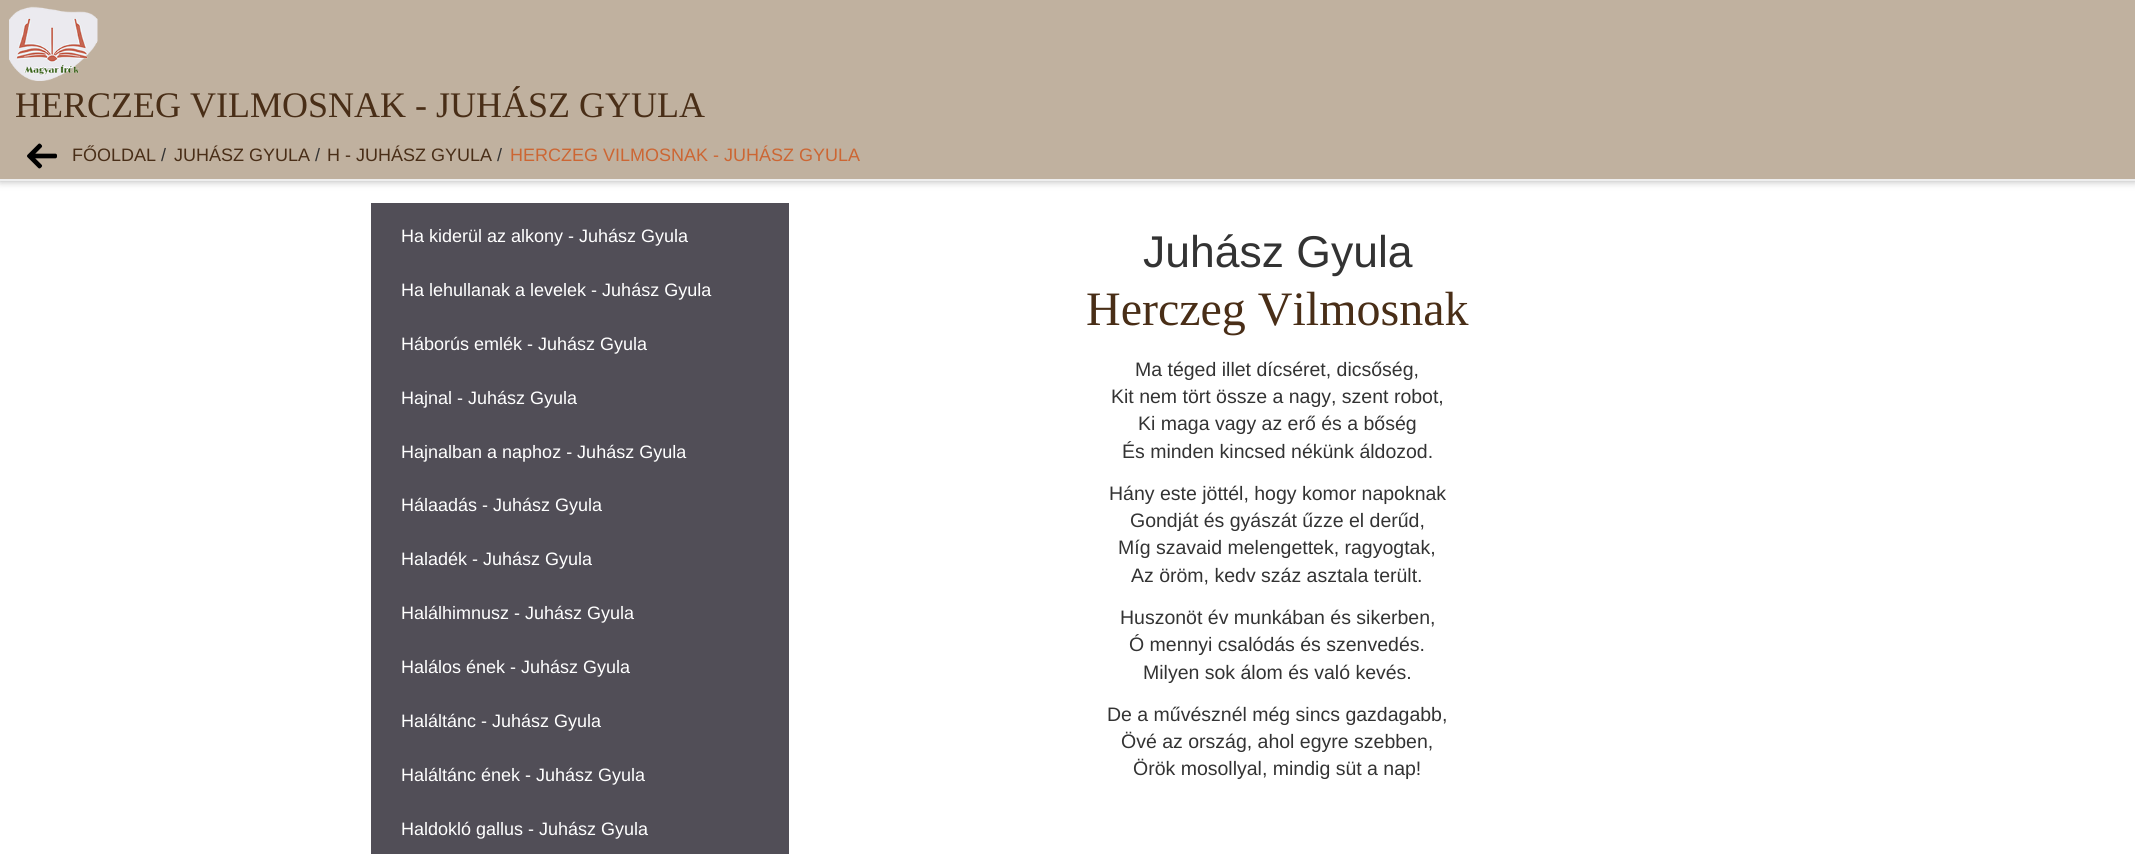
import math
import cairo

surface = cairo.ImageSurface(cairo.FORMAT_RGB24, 2135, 854)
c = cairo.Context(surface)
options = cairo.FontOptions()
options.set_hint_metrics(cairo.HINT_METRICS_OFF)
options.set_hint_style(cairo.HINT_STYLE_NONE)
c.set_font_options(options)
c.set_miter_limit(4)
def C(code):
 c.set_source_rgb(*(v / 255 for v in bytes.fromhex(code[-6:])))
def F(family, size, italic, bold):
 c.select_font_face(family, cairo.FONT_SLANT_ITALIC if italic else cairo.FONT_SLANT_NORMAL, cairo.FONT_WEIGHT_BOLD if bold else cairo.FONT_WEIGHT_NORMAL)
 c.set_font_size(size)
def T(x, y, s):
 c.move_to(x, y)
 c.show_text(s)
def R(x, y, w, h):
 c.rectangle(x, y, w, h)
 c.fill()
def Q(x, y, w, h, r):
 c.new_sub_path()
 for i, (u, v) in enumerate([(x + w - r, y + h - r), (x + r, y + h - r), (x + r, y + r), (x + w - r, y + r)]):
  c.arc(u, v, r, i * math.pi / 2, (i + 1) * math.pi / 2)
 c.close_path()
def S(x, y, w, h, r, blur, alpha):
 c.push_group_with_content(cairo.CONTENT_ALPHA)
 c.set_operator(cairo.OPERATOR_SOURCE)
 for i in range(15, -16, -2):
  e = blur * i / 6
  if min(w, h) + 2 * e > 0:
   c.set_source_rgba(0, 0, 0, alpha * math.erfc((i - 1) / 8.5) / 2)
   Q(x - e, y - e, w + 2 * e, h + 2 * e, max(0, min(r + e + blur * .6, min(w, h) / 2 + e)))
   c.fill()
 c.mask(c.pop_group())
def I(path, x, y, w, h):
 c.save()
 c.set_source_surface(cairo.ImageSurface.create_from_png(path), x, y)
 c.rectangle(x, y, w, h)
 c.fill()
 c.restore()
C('ffffff')
c.paint()
C('000000')
S(0,0,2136,180,0,4.5,.4)
C('c0b19f')
R(0,0,2135,179)
C('eeeeee')
R(0,179,2135,2)
I('1.png',9,6,89,75)
F('Liberation Serif',36,0,0)
C('492e17')
T(15,117,'HERCZEG VILMOSNAK - JUHÁSZ GYULA')
I('2.png',27,143,30,26)
F('Liberation Sans',18,0,0)
T(72,161,'FŐOLDAL')
C('333333')
T(161,161,'/')
C('492e17')
T(174,161,'JUHÁSZ GYULA')
C('333333')
T(315,161,'/')
C('492e17')
T(327,161,'H - JUHÁSZ GYULA')
C('333333')
T(497,161,'/')
C('cc6633')
T(510,161,'HERCZEG VILMOSNAK - JUHÁSZ GYULA')
C('514e57')
R(371,203,418,651)
C('ffffff')
T(401,242,'Ha kiderül az alkony - Juhász Gyula')
T(401,296,'Ha lehullanak a levelek - Juhász Gyula')
T(401,350,'Háborús emlék - Juhász Gyula')
T(401,404,'Hajnal - Juhász Gyula')
T(401,458,'Hajnalban a naphoz - Juhász Gyula')
T(401,511,'Hálaadás - Juhász Gyula')
T(401,565,'Haladék - Juhász Gyula')
T(401,619,'Halálhimnusz - Juhász Gyula')
T(401,673,'Halálos ének - Juhász Gyula')
T(401,727,'Haláltánc - Juhász Gyula')
T(401,781,'Haláltánc ének - Juhász Gyula')
T(401,835,'Haldokló gallus - Juhász Gyula')
F('Liberation Sans',44.5,0,0)
C('333333')
T(1143,267,'Juhász Gyula')
F('Liberation Serif',48,0,0)
C('492e17')
T(1086,325,'Herczeg Vilmosnak')
F('Liberation Sans',19.5,0,0)
C('333333')
T(1135,376,'Ma téged illet dícséret, dicsőség,')
T(1111,403,'Kit nem tört össze a nagy, szent robot,')
T(1138,430,'Ki maga vagy az erő és a bőség')
T(1122,458,'És minden kincsed nékünk áldozod.')
T(1109,500,'Hány este jöttél, hogy komor napoknak')
T(1130,527,'Gondját és gyászát űzze el derűd,')
T(1118,554,'Míg szavaid melengettek, ragyogtak,')
T(1131,582,'Az öröm, kedv száz asztala terült.')
T(1120,624,'Huszonöt év munkában és sikerben,')
T(1129,651,'Ó mennyi csalódás és szenvedés.')
T(1143,679,'Milyen sok álom és való kevés.')
T(1107,721,'De a művésznél még sincs gazdagabb,')
T(1121,748,'Övé az ország, ahol egyre szebben,')
T(1133,775,'Örök mosollyal, mindig süt a nap!')
surface.write_to_png('o.png')
